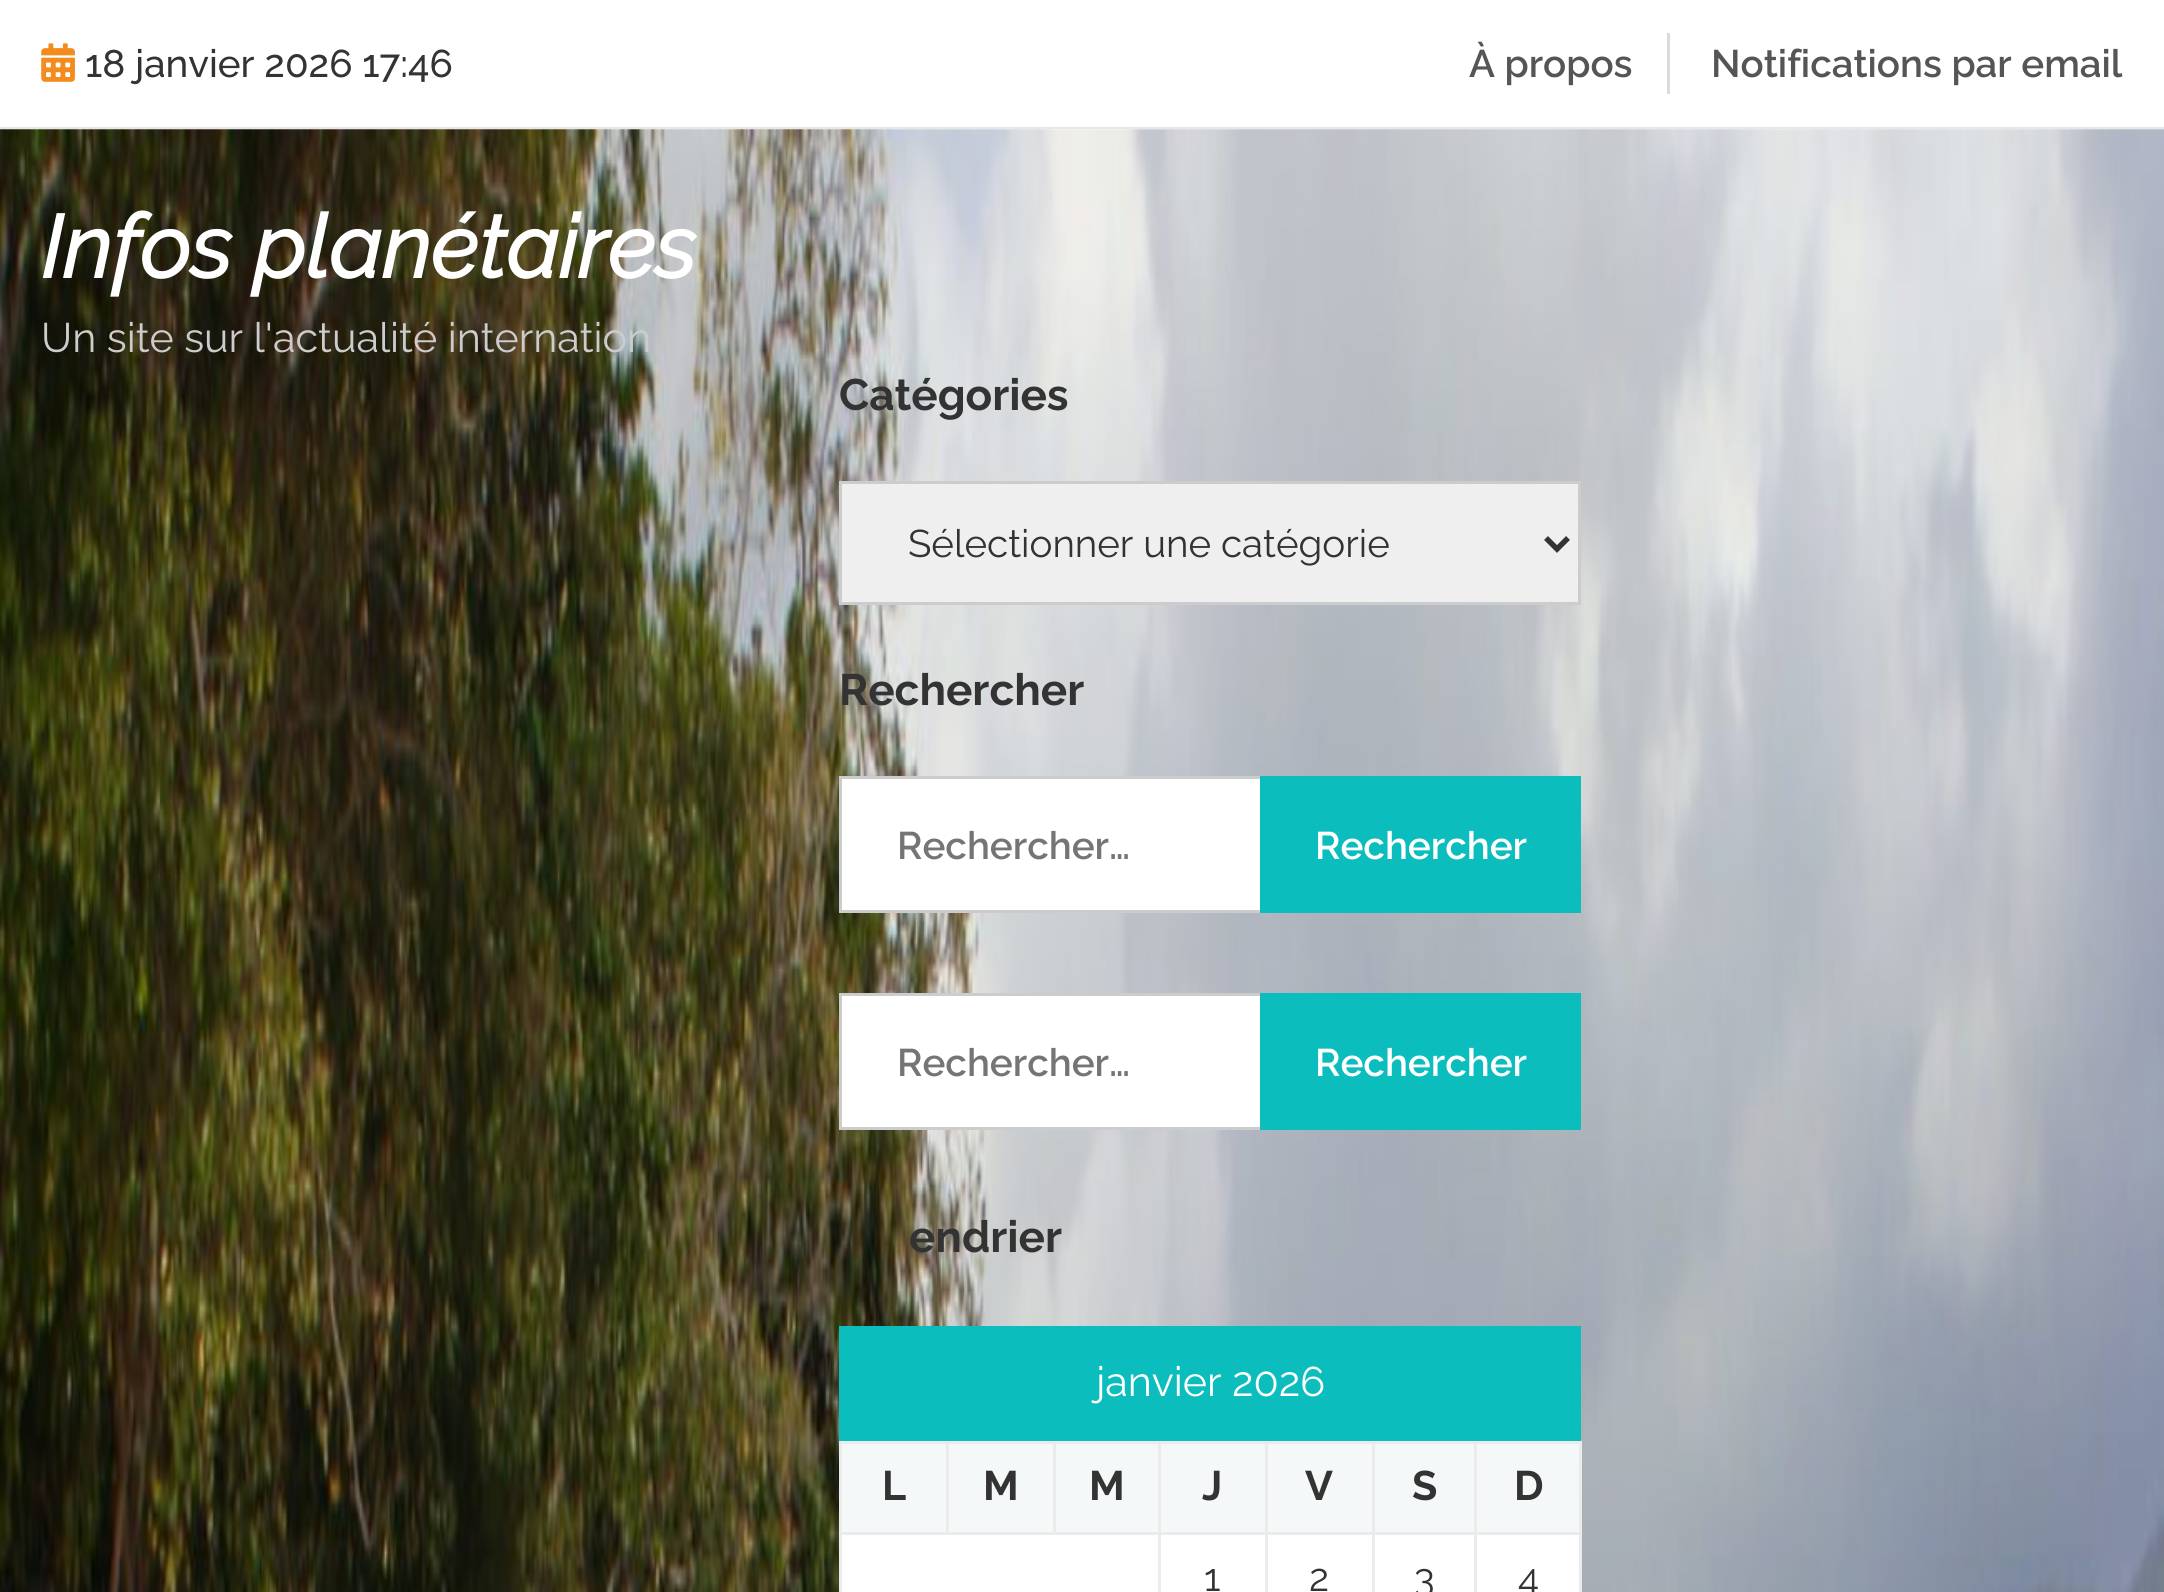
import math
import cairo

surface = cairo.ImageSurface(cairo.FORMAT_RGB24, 2164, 1592)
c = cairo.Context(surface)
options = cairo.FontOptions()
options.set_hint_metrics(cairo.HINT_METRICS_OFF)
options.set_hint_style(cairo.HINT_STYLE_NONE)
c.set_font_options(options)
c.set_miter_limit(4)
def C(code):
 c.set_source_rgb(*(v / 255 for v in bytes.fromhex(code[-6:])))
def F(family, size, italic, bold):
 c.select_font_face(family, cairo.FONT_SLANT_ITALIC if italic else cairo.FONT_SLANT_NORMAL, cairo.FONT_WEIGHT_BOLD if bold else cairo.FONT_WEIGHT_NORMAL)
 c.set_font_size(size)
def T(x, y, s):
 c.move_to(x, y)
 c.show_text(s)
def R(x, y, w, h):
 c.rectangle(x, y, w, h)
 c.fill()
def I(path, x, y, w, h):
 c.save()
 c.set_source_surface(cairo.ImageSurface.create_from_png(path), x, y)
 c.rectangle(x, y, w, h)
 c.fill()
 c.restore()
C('ffffff')
c.paint()
C('e7e7e7')
R(0,127,2164,2)
I('1.png',41,43,34,39)
F('Raleway Medium',38.5,0,0)
C('333333')
T(85,77,'18 janvier 2026 17:46')
C('dbdbdb')
R(1667,33,3,61)
F('Raleway SemiBold',38.5,0,0)
C('555555')
T(1469,77,'À propos')
T(1711,77,'Notifications par email')
I('2.png',0,129,2164,1463)
F('Raleway',88,1,1)
C('ffffff')
T(41,278,'Infos planétaires')
F('Raleway',41.25,0,0)
C('cccccc')
T(41,352,'Un site sur l\'actualité internation')
F('Raleway',44,0,1)
C('333333')
T(839,410,'Catégories')
C('efefef')
c.rectangle(840.5,482.5,739,121)
c.fill_preserve()
C('cccccc')
c.set_line_width(3)
c.stroke()
c.new_path()
c.move_to(1546,538)
c.line_to(1557,549)
c.line_to(1568,538)
C('333333')
c.set_line_width(5.5)
c.stroke()
F('Raleway',38.5,0,0)
T(908,557,'Sélectionner une catégorie')
F('Raleway',44,0,1)
T(839,705,'Rechercher')
C('ffffff')
R(842,779,418,131)
c.rectangle(840.5,777.5,739,134)
C('cccccc')
c.set_line_width(3)
c.stroke()
F('Raleway SemiBold',38.5,0,0)
C('757575')
T(897,859,'Rechercher…')
C('0cbdbd')
R(1260,776,321,137)
C('ffffff')
T(1315,859,'Rechercher')
R(842,996,418,131)
c.rectangle(840.5,994.5,739,134)
C('cccccc')
c.stroke()
C('757575')
T(897,1076,'Rechercher…')
C('0cbdbd')
R(1260,993,321,137)
C('ffffff')
T(1315,1076,'Rechercher')
F('Raleway',44,0,1)
C('333333')
T(909,1252,'endrier')
C('0cbdbd')
R(839,1326,742,115)
F('Raleway',41.25,0,0)
C('ffffff')
T(1096,1396,'janvier 2026')
C('f5f8f9')
R(842,1444,104,88)
C('ebebeb')
R(1474,1441,107,3)
R(1474,1532,107,3)
R(1474,1532,3,60)
R(1372,1532,105,3)
R(1474,1441,3,94)
R(1372,1441,105,3)
R(1372,1532,3,60)
R(1265,1532,110,3)
R(1372,1441,3,94)
R(1265,1441,110,3)
R(1265,1532,3,60)
R(1158,1532,110,3)
R(1265,1441,3,94)
R(1158,1441,110,3)
R(1158,1532,3,60)
R(839,1532,322,3)
R(1158,1441,3,94)
R(1053,1441,108,3)
R(1053,1441,3,94)
R(946,1441,110,3)
R(946,1441,3,94)
R(839,1441,110,3)
R(839,1532,3,60)
R(839,1441,3,94)
F('Raleway',41.25,0,1)
C('333333')
T(882,1500,'L')
C('f5f8f9')
R(949,1444,104,88)
C('333333')
T(983,1500,'M')
C('f5f8f9')
R(1056,1444,102,88)
C('333333')
T(1089,1500,'M')
C('f5f8f9')
R(1161,1444,104,88)
C('333333')
T(1202,1500,'J')
C('f5f8f9')
R(1268,1444,104,88)
C('333333')
T(1305,1500,'V')
C('f5f8f9')
R(1375,1444,99,88)
C('333333')
T(1412,1500,'S')
C('f5f8f9')
R(1477,1444,102,88)
C('ebebeb')
R(1579,1532,3,60)
R(1579,1441,3,94)
C('333333')
T(1514,1500,'D')
C('ffffff')
R(842,1535,316,57)
R(1161,1535,104,57)
F('Raleway',38.5,0,0)
C('333333')
T(1204,1591,'1')
C('ffffff')
R(1268,1535,104,57)
C('333333')
T(1309,1591,'2')
C('ffffff')
R(1375,1535,99,57)
C('333333')
T(1414,1591,'3')
C('ffffff')
R(1477,1535,102,57)
C('333333')
T(1518,1591,'4')
surface.write_to_png('o.png')
